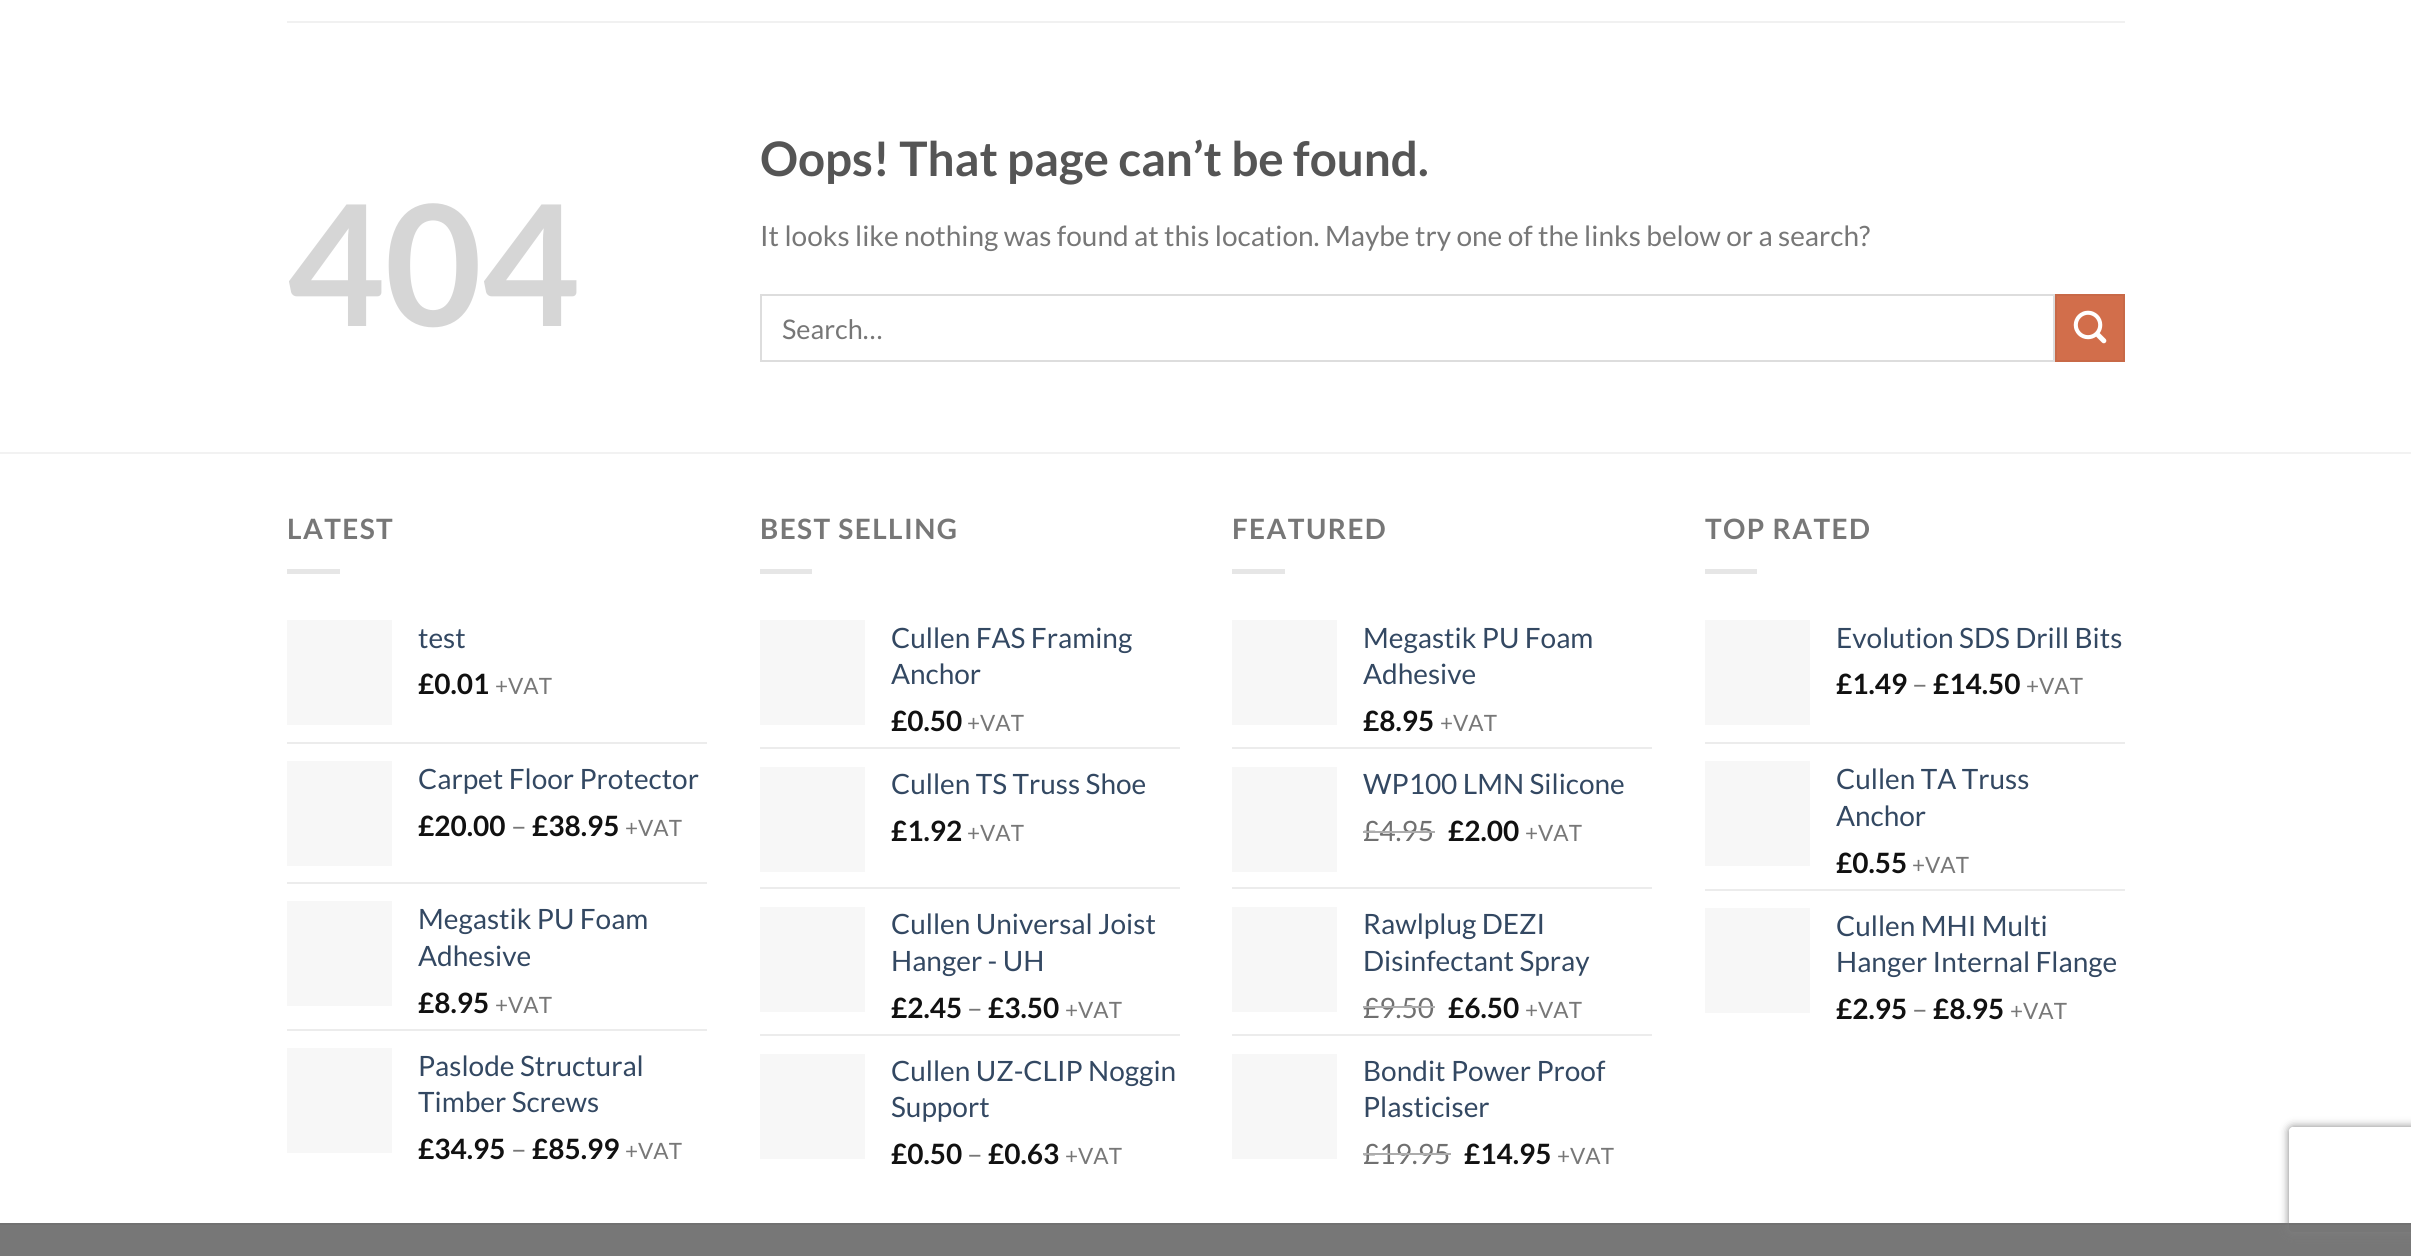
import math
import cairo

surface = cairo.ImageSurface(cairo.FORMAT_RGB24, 2411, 1256)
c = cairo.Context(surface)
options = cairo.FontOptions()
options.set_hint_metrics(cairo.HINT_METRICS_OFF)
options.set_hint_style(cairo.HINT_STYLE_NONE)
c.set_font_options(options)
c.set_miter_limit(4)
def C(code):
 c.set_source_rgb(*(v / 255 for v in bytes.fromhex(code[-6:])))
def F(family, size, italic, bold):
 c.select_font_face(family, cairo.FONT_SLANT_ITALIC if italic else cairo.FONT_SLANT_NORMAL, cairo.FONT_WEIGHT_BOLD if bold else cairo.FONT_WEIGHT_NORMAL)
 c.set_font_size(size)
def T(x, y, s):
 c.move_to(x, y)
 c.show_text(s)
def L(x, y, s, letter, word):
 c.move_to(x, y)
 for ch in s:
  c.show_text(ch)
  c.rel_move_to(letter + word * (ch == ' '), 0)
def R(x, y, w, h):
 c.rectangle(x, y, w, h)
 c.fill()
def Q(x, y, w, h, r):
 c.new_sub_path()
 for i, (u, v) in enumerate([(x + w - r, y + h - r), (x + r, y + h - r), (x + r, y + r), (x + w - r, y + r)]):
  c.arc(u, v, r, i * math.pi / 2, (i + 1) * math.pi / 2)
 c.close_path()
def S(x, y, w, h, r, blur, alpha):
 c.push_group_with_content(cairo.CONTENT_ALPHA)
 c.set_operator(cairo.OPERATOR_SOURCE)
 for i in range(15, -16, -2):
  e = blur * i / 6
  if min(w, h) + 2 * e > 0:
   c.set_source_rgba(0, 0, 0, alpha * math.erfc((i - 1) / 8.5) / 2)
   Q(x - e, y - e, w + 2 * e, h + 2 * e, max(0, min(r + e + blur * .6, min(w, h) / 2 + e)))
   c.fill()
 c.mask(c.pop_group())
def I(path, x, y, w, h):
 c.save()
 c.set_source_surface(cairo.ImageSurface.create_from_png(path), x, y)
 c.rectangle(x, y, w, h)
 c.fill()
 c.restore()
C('ffffff')
c.paint()
C('f1f1f1')
R(287,21,1838,2)
F('Lato',168,0,1)
C('d6d6d6')
T(287,326,'404')
F('Lato',47.6,0,1)
C('555555')
T(760,176,'Oops! That page can’t be found.')
F('Lato',28,0,0)
C('777777')
T(760,246,'It looks like nothing was found at this location. Maybe try one of the links below or a search?')
c.rectangle(761,295,1293,66)
C('dddddd')
c.stroke()
F('Lato',27,0,0)
C('777777')
T(782,339,'Search…')
C('d26e4b')
c.rectangle(2056,295,68,66)
c.fill_preserve()
C('c86947')
c.stroke()
I('1.png',2073,310,34,34)
C('f2f2f2')
R(0,452,2411,2)
F('Lato',28,0,1)
C('777777')
L(287,539,'LATEST',1.4,0)
C('e6e6e6')
R(287,569,53,5)
C('f7f7f7')
R(287,620,105,105)
F('Lato',28,0,0)
C('334862')
T(418,648,'test')
F('Lato',28,0,1)
C('111111')
T(418,694,'£0.01')
F('Lato',22.5,0,0)
C('777777')
T(495,694,'+VAT')
C('ececec')
R(287,742,420,2)
C('f7f7f7')
R(287,761,105,105)
F('Lato',28,0,0)
C('334862')
T(418,789,'Carpet Floor Protector')
F('Lato',28,0,1)
C('111111')
T(418,836,'£20.00')
F('Lato',28,0,0)
C('777777')
T(511,836,'–')
F('Lato',28,0,1)
C('111111')
T(532,836,'£38.95')
F('Lato',22.5,0,0)
C('777777')
T(625,836,'+VAT')
C('ececec')
R(287,882,420,2)
C('f7f7f7')
R(287,901,105,105)
F('Lato',28,0,0)
C('334862')
T(418,929,'Megastik PU Foam')
T(418,966,'Adhesive')
F('Lato',28,0,1)
C('111111')
T(418,1013,'£8.95')
F('Lato',22.5,0,0)
C('777777')
T(495,1013,'+VAT')
C('ececec')
R(287,1029,420,2)
C('f7f7f7')
R(287,1048,105,105)
F('Lato',28,0,0)
C('334862')
T(418,1076,'Paslode Structural')
T(418,1112,'Timber Screws')
F('Lato',28,0,1)
C('111111')
T(418,1159,'£34.95')
F('Lato',28,0,0)
C('777777')
T(511,1159,'–')
F('Lato',28,0,1)
C('111111')
T(532,1159,'£85.99')
F('Lato',22.5,0,0)
C('777777')
T(625,1159,'+VAT')
F('Lato',28,0,1)
L(760,539,'BEST SELLING',1.4,0)
C('e6e6e6')
R(760,569,52,5)
C('f7f7f7')
R(760,620,105,105)
F('Lato',28,0,0)
C('334862')
T(891,648,'Cullen FAS Framing')
T(891,684,'Anchor')
F('Lato',28,0,1)
C('111111')
T(891,731,'£0.50')
F('Lato',22.5,0,0)
C('777777')
T(967,731,'+VAT')
C('ececec')
R(760,747,420,2)
C('f7f7f7')
R(760,767,105,105)
F('Lato',28,0,0)
C('334862')
T(891,794,'Cullen TS Truss Shoe')
F('Lato',28,0,1)
C('111111')
T(891,841,'£1.92')
F('Lato',22.5,0,0)
C('777777')
T(967,841,'+VAT')
C('ececec')
R(760,887,420,2)
C('f7f7f7')
R(760,907,105,105)
F('Lato',28,0,0)
C('334862')
T(891,934,'Cullen Universal Joist')
T(891,971,'Hanger - UH')
F('Lato',28,0,1)
C('111111')
T(891,1018,'£2.45')
F('Lato',28,0,0)
C('777777')
T(967,1018,'–')
F('Lato',28,0,1)
C('111111')
T(988,1018,'£3.50')
F('Lato',22.5,0,0)
C('777777')
T(1065,1018,'+VAT')
C('ececec')
R(760,1034,420,2)
C('f7f7f7')
R(760,1054,105,105)
F('Lato',28,0,0)
C('334862')
T(891,1081,'Cullen UZ-CLIP Noggin')
T(891,1117,'Support')
F('Lato',28,0,1)
C('111111')
T(891,1164,'£0.50')
F('Lato',28,0,0)
C('777777')
T(967,1164,'–')
F('Lato',28,0,1)
C('111111')
T(988,1164,'£0.63')
F('Lato',22.5,0,0)
C('777777')
T(1065,1164,'+VAT')
F('Lato',28,0,1)
L(1232,539,'FEATURED',1.4,0)
C('e6e6e6')
R(1232,569,53,5)
C('f7f7f7')
R(1232,620,105,105)
F('Lato',28,0,0)
C('334862')
T(1363,648,'Megastik PU Foam')
T(1363,684,'Adhesive')
F('Lato',28,0,1)
C('111111')
T(1363,731,'£8.95')
F('Lato',22.5,0,0)
C('777777')
T(1440,731,'+VAT')
C('ececec')
R(1232,747,420,2)
C('f7f7f7')
R(1232,767,105,105)
F('Lato',28,0,0)
C('334862')
T(1363,794,'WP100 LMN Silicone')
C('707070')
T(1363,841,'£4.95')
C('adadad')
R(1363,831,72,2)
F('Lato',28,0,1)
C('111111')
T(1448,841,'£2.00')
F('Lato',22.5,0,0)
C('777777')
T(1525,841,'+VAT')
C('ececec')
R(1232,887,420,2)
C('f7f7f7')
R(1232,907,105,105)
F('Lato',28,0,0)
C('334862')
T(1363,934,'Rawlplug DEZI')
T(1363,971,'Disinfectant Spray')
C('707070')
T(1363,1018,'£9.50')
C('adadad')
R(1363,1006,72,2)
F('Lato',28,0,1)
C('111111')
T(1448,1018,'£6.50')
F('Lato',22.5,0,0)
C('777777')
T(1525,1018,'+VAT')
C('ececec')
R(1232,1034,420,2)
C('f7f7f7')
R(1232,1054,105,105)
F('Lato',28,0,0)
C('334862')
T(1363,1081,'Bondit Power Proof')
T(1363,1117,'Plasticiser')
C('707070')
T(1363,1164,'£19.95')
C('adadad')
R(1363,1153,88,2)
F('Lato',28,0,1)
C('111111')
T(1464,1164,'£14.95')
F('Lato',22.5,0,0)
C('777777')
T(1557,1164,'+VAT')
F('Lato',28,0,1)
L(1705,539,'TOP RATED',1.4,0)
C('e6e6e6')
R(1705,569,52,5)
C('f7f7f7')
R(1705,620,105,105)
F('Lato',28,0,0)
C('334862')
T(1836,648,'Evolution SDS Drill Bits')
F('Lato',28,0,1)
C('111111')
T(1836,694,'£1.49')
F('Lato',28,0,0)
C('777777')
T(1912,694,'–')
F('Lato',28,0,1)
C('111111')
T(1933,694,'£14.50')
F('Lato',22.5,0,0)
C('777777')
T(2026,694,'+VAT')
C('ececec')
R(1705,742,420,2)
C('f7f7f7')
R(1705,761,105,105)
F('Lato',28,0,0)
C('334862')
T(1836,789,'Cullen TA Truss')
T(1836,826,'Anchor')
F('Lato',28,0,1)
C('111111')
T(1836,873,'£0.55')
F('Lato',22.5,0,0)
C('777777')
T(1912,873,'+VAT')
C('ececec')
R(1705,889,420,2)
C('f7f7f7')
R(1705,908,105,105)
F('Lato',28,0,0)
C('334862')
T(1836,936,'Cullen MHI Multi')
T(1836,972,'Hanger Internal Flange')
F('Lato',28,0,1)
C('111111')
T(1836,1019,'£2.95')
F('Lato',28,0,0)
C('777777')
T(1912,1019,'–')
F('Lato',28,0,1)
C('111111')
T(1933,1019,'£8.95')
F('Lato',22.5,0,0)
C('777777')
T(2010,1019,'+VAT')
R(0,1225,2411,31)
C('717171')
R(0,1223,2411,2)
c.save()
c.set_fill_rule(cairo.FILL_RULE_EVEN_ODD)
c.new_path()
c.move_to(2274,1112)
c.line_to(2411,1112)
c.line_to(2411,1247)
c.line_to(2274,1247)
c.close_path()
c.move_to(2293,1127)
c.line_to(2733,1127)
c.curve_to(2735,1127,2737,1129,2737,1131)
c.line_to(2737,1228)
c.curve_to(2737,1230,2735,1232,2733,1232)
c.line_to(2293,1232)
c.curve_to(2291,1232,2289,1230,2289,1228)
c.line_to(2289,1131)
c.curve_to(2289,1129,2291,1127,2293,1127)
c.close_path()
c.clip()
C('808080')
S(2289,1127,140,105,4,4.5,1)
c.restore()
surface.write_to_png('o.png')
